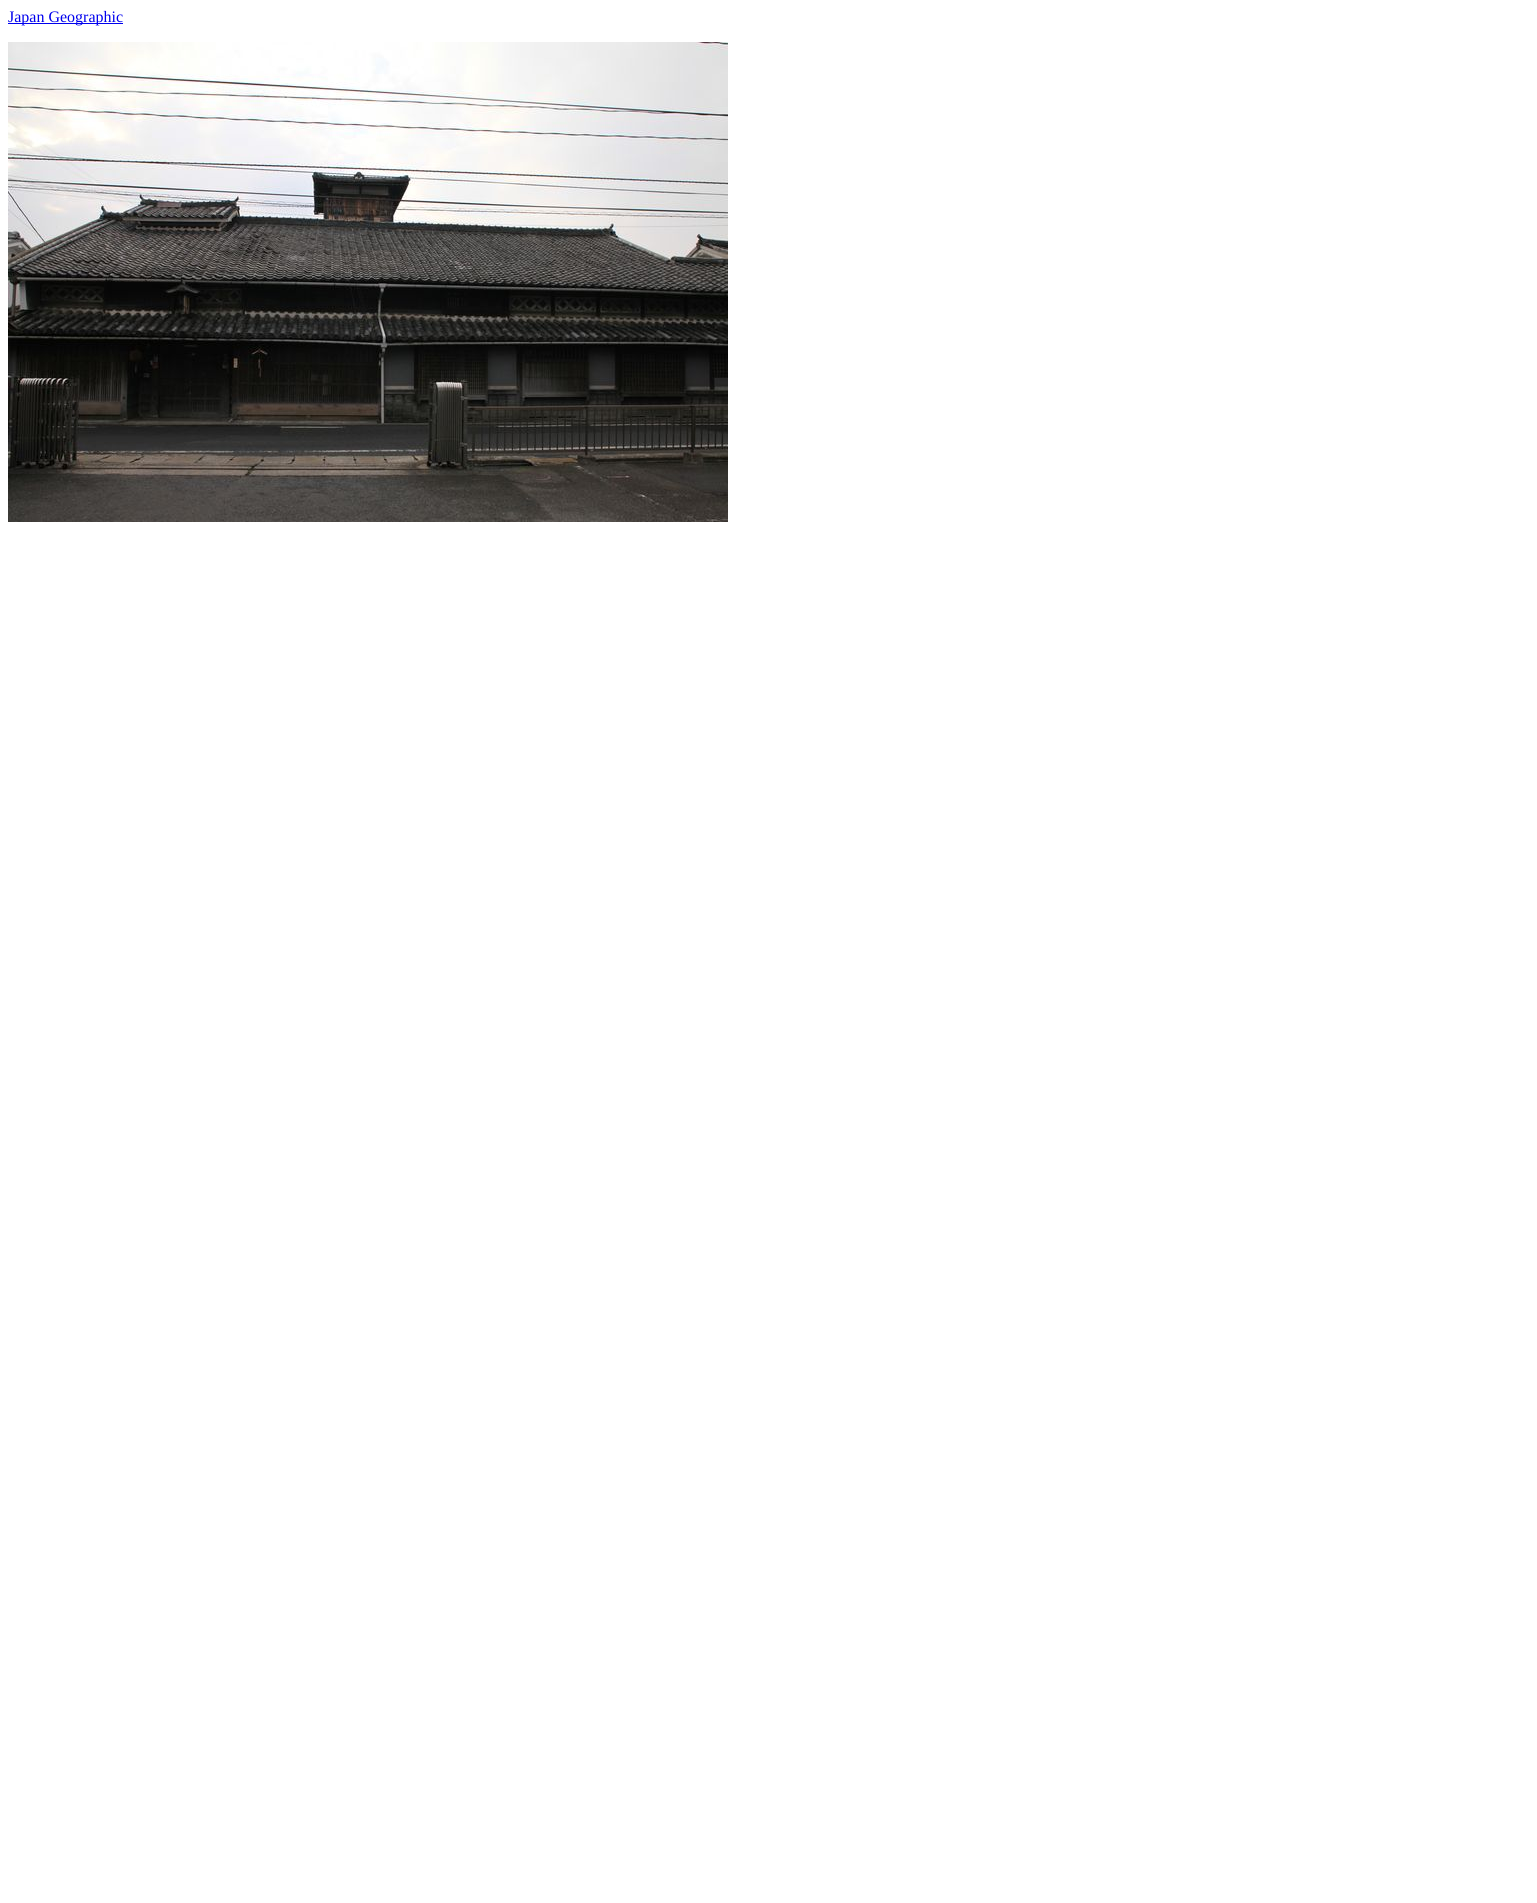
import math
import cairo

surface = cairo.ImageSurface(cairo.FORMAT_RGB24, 1537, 1903)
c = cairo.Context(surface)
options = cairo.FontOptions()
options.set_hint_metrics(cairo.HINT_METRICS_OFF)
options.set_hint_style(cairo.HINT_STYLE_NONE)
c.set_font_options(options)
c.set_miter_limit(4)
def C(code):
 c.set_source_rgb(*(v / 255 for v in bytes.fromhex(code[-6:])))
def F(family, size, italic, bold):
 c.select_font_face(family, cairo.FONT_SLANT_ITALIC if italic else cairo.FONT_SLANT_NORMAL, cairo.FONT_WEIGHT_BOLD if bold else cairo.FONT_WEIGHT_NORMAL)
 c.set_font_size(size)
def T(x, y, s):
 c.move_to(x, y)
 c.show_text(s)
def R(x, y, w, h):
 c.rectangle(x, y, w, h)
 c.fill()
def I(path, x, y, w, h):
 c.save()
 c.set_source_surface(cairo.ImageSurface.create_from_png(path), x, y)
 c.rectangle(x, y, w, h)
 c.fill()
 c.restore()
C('ffffff')
c.paint()
C('0000ee')
R(8,23,115,1)
F('Liberation Serif',16,0,0)
T(8,22,'Japan Geographic')
I('1.png',8,42,720,480)
surface.write_to_png('o.png')
